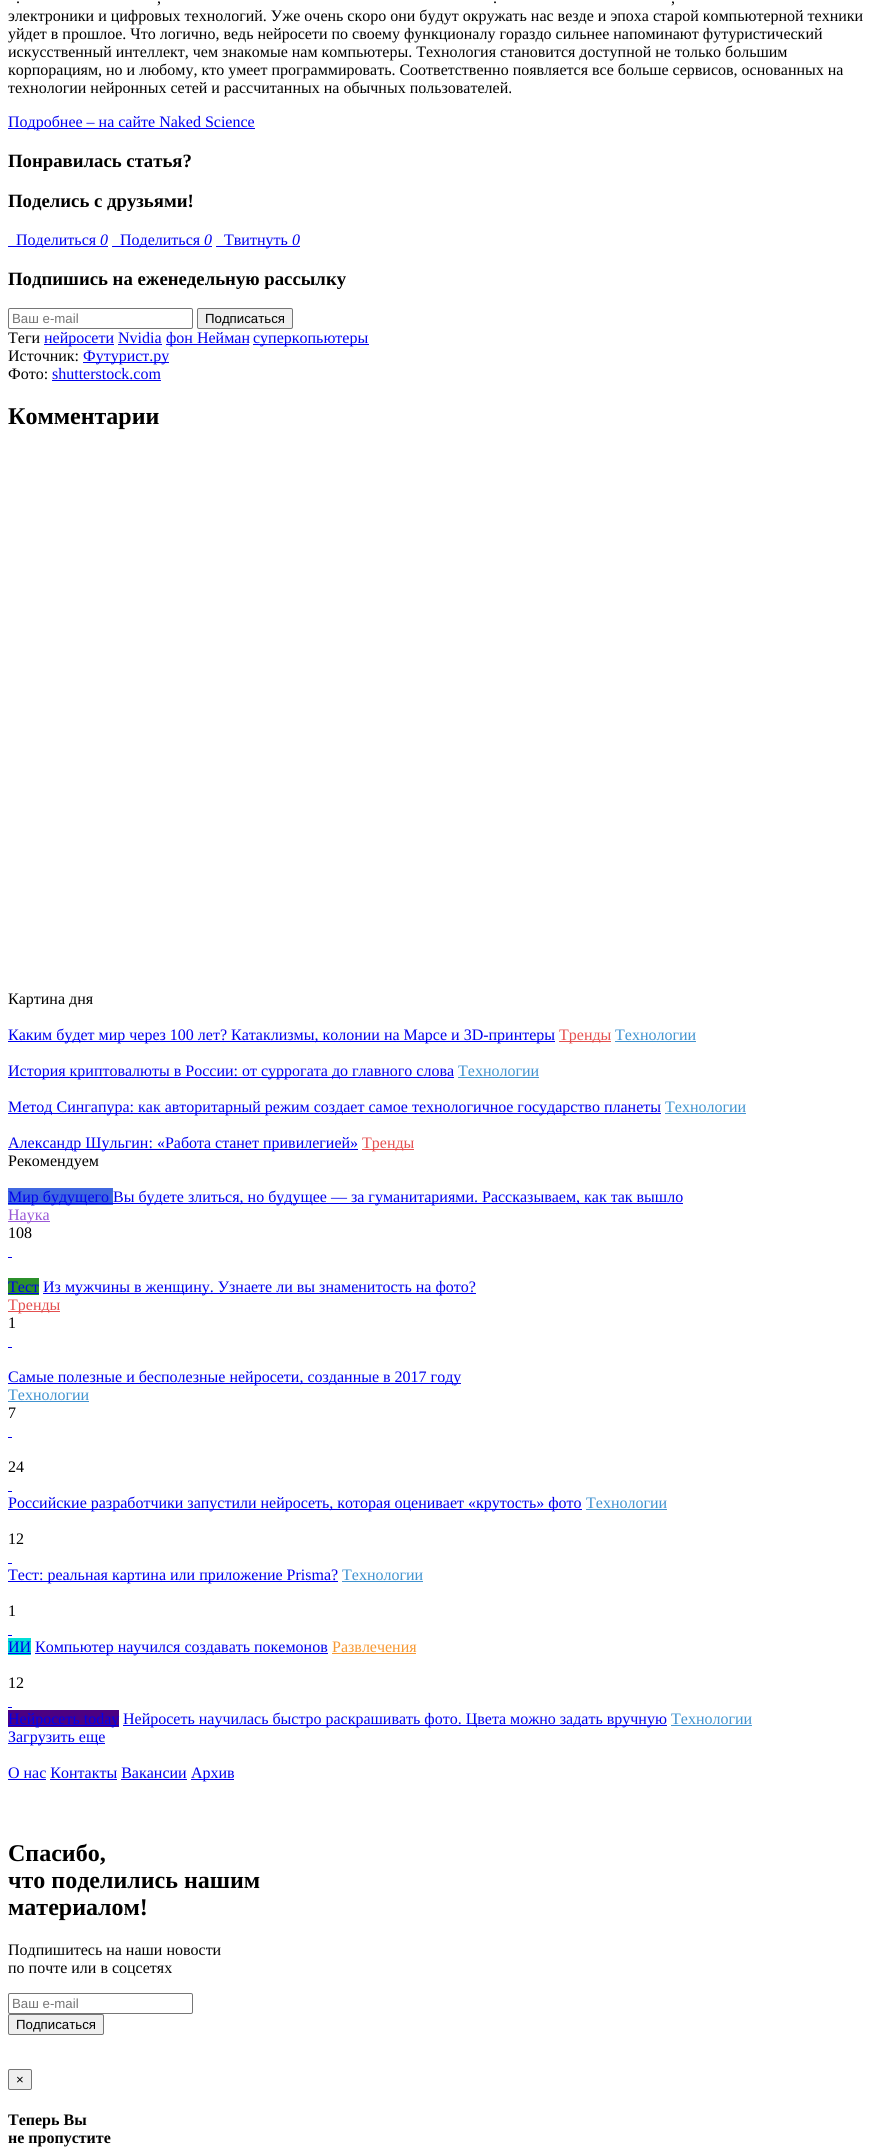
import math
import cairo

surface = cairo.ImageSurface(cairo.FORMAT_RGB24, 892, 2150)
c = cairo.Context(surface)
options = cairo.FontOptions()
options.set_hint_metrics(cairo.HINT_METRICS_OFF)
options.set_hint_style(cairo.HINT_STYLE_NONE)
c.set_font_options(options)
c.set_miter_limit(4)
def C(code):
 c.set_source_rgb(*(v / 255 for v in bytes.fromhex(code[-6:])))
def F(family, size, italic, bold):
 c.select_font_face(family, cairo.FONT_SLANT_ITALIC if italic else cairo.FONT_SLANT_NORMAL, cairo.FONT_WEIGHT_BOLD if bold else cairo.FONT_WEIGHT_NORMAL)
 c.set_font_size(size)
def T(x, y, s):
 c.move_to(x, y)
 c.show_text(s)
def R(x, y, w, h):
 c.rectangle(x, y, w, h)
 c.fill()
def Q(x, y, w, h, r):
 c.new_sub_path()
 for i, (u, v) in enumerate([(x + w - r, y + h - r), (x + r, y + h - r), (x + r, y + r), (x + w - r, y + r)]):
  c.arc(u, v, r, i * math.pi / 2, (i + 1) * math.pi / 2)
 c.close_path()
C('ffffff')
c.paint()
F('Liberation Serif',16,0,0)
C('000000')
T(16,3,'.')
T(157,3,',')
T(493,3,'.')
T(671,3,',')
T(8,21,'электроники и цифровых технологий. Уже очень скоро они будут окружать нас везде и эпоха старой компьютерной техники')
T(8,39,'уйдет в прошлое. Что логично, ведь нейросети по своему функционалу гораздо сильнее напоминают футуристический')
T(8,57,'искусственный интеллект, чем знакомые нам компьютеры. Технология становится доступной не только большим')
T(8,75,'корпорациям, но и любому, кто умеет программировать. Соответственно появляется все больше сервисов, основанных на')
T(8,93,'технологии нейронных сетей и рассчитанных на обычных пользователей.')
C('0000ee')
R(8,128,247,1)
T(8,127,'Подробнее – на сайте Naked Science')
F('Liberation Serif',18.75,0,1)
C('000000')
T(8,167,'Понравилась статья?')
T(8,207,'Поделись с друзьями!')
C('0000ee')
R(8,246,100,1)
F('Liberation Serif',16,0,0)
T(16,245,'Поделиться')
F('Liberation Serif',16,1,0)
T(100,245,'0')
R(112,246,100,1)
F('Liberation Serif',16,0,0)
T(120,245,'Поделиться')
F('Liberation Serif',16,1,0)
T(204,245,'0')
R(216,246,84,1)
F('Liberation Serif',16,0,0)
T(224,245,'Твитнуть')
F('Liberation Serif',16,1,0)
T(292,245,'0')
F('Liberation Serif',18.75,0,1)
C('000000')
T(8,285,'Подпишись на еженедельную рассылку')
Q(8.5,308.5,184,20,1.5)
C('767676')
c.set_line_width(1)
c.stroke()
F('Liberation Sans',13.25,0,0)
C('757575')
T(12,323,'Ваш e-mail')
C('efefef')
Q(197.5,308.5,95,20,1.5)
c.fill_preserve()
C('767676')
c.stroke()
C('000000')
T(205,323,'Подписаться')
F('Liberation Serif',16,0,0)
T(8,343,'Теги')
C('0000ee')
R(44,344,70,1)
T(44,343,'нейросети Nvidia')
R(166,344,83,1)
T(166,343,'фон Нейман')
R(253,344,116,1)
T(253,343,'суперкопьютеры')
R(118,344,44,1)
C('000000')
T(8,361,'Источник:')
C('0000ee')
R(83,362,86,1)
T(83,361,'Футурист.ру')
C('000000')
T(8,379,'Фото:')
C('0000ee')
T(52,379,'shutterstock.com')
R(52,380,109,1)
F('Liberation Serif',24,0,1)
C('000000')
T(8,424,'Комментарии')
F('Liberation Serif',16,0,0)
T(8,1004,'Картина дня')
C('0000ee')
R(8,1041,547,1)
T(8,1040,'Каким будет мир через 100 лет? Катаклизмы, колонии на Марсе и 3D-принтеры')
C('e45050')
R(559,1041,52,1)
T(559,1040,'Тренды')
C('4092d0')
T(615,1040,'Технологии')
R(615,1041,81,1)
C('0000ee')
R(8,1077,446,1)
T(8,1076,'История криптовалюты в России: от суррогата до главного слова')
C('4092d0')
T(458,1076,'Технологии')
R(458,1077,81,1)
C('0000ee')
R(8,1113,653,1)
T(8,1112,'Метод Сингапура: как авторитарный режим создает самое технологичное государство планеты')
C('4092d0')
T(665,1112,'Технологии')
R(665,1113,81,1)
C('0000ee')
R(8,1149,350,1)
T(8,1148,'Александр Шульгин: «Работа станет привилегией»')
C('e45050')
R(362,1149,52,1)
T(362,1148,'Тренды')
C('000000')
T(8,1166,'Рекомендуем')
C('4169e1')
R(8,1188,105,17)
C('0000ee')
R(8,1203,675,1)
T(8,1202,'Мир будущего Вы будете злиться, но будущее — за гуманитариями. Рассказываем, как так вышло')
C('9a59d7')
R(8,1221,42,1)
T(8,1220,'Наука')
C('000000')
T(8,1238,'108')
C('0000ee')
R(8,1257,4,1)
C('2b902b')
R(8,1278,31,17)
C('0000ee')
T(8,1292,'Тест')
R(8,1293,31,1)
R(43,1293,433,1)
T(43,1292,'Из мужчины в женщину. Узнаете ли вы знаменитость на фото?')
C('e45050')
R(8,1311,52,1)
T(8,1310,'Тренды')
C('000000')
T(8,1328,'1')
C('0000ee')
R(8,1347,4,1)
R(8,1383,453,1)
T(8,1382,'Самые полезные и бесполезные нейросети, созданные в 2017 году')
C('4092d0')
T(8,1400,'Технологии')
R(8,1401,81,1)
C('000000')
T(8,1418,'7')
C('0000ee')
R(8,1437,4,1)
C('000000')
T(8,1472,'24')
C('0000ee')
R(8,1491,4,1)
R(8,1509,574,1)
T(8,1508,'Российские разработчики запустили нейросеть, которая оценивает «крутость» фото')
C('4092d0')
T(586,1508,'Технологии')
R(586,1509,81,1)
C('000000')
T(8,1544,'12')
C('0000ee')
R(8,1563,4,1)
R(8,1581,330,1)
T(8,1580,'Тест: реальная картина или приложение Prisma?')
C('4092d0')
T(342,1580,'Технологии')
R(342,1581,81,1)
C('000000')
T(8,1616,'1')
C('0000ee')
R(8,1635,4,1)
C('01dfd7')
R(8,1638,23,17)
C('0000ee')
T(8,1652,'ИИ')
R(8,1653,23,1)
R(35,1653,293,1)
T(35,1652,'Компьютер научился создавать покемонов')
C('f79832')
T(332,1652,'Развлечения')
R(332,1653,84,1)
C('000000')
T(8,1688,'12')
C('0000ee')
R(8,1707,4,1)
C('4b0082')
R(8,1710,111,17)
C('0000ee')
R(8,1725,111,1)
T(8,1724,'Нейросеть today')
R(123,1725,544,1)
T(123,1724,'Нейросеть научилась быстро раскрашивать фото. Цвета можно задать вручную')
C('4092d0')
T(671,1724,'Технологии')
R(671,1725,81,1)
C('0000ee')
R(8,1743,97,1)
T(8,1742,'Загрузить еще')
T(8,1778,'О нас Контакты Вакансии')
R(8,1779,38,1)
R(191,1779,43,1)
T(191,1778,'Архив')
R(50,1779,67,1)
R(121,1779,66,1)
F('Liberation Serif',24,0,1)
C('000000')
T(8,1861,'Спасибо,')
T(8,1888,'что поделились нашим')
T(8,1915,'материалом!')
F('Liberation Serif',16,0,0)
T(8,1955,'Подпишитесь на наши новости')
T(8,1973,'по почте или в соцсетях')
Q(8.5,1993.5,184,20,1.5)
C('767676')
c.stroke()
F('Liberation Sans',13.25,0,0)
C('757575')
T(12,2008,'Ваш e-mail')
C('efefef')
Q(8.5,2014.5,95,20,1.5)
c.fill_preserve()
C('767676')
c.stroke()
C('000000')
T(16,2029,'Подписаться')
C('efefef')
Q(8.5,2069.5,23,20,1.5)
c.fill_preserve()
C('767676')
c.stroke()
C('000000')
T(16,2084,'×')
F('Liberation Serif',16,0,1)
T(8,2125,'Теперь Вы')
T(8,2143,'не пропустите')
surface.write_to_png('o.png')
